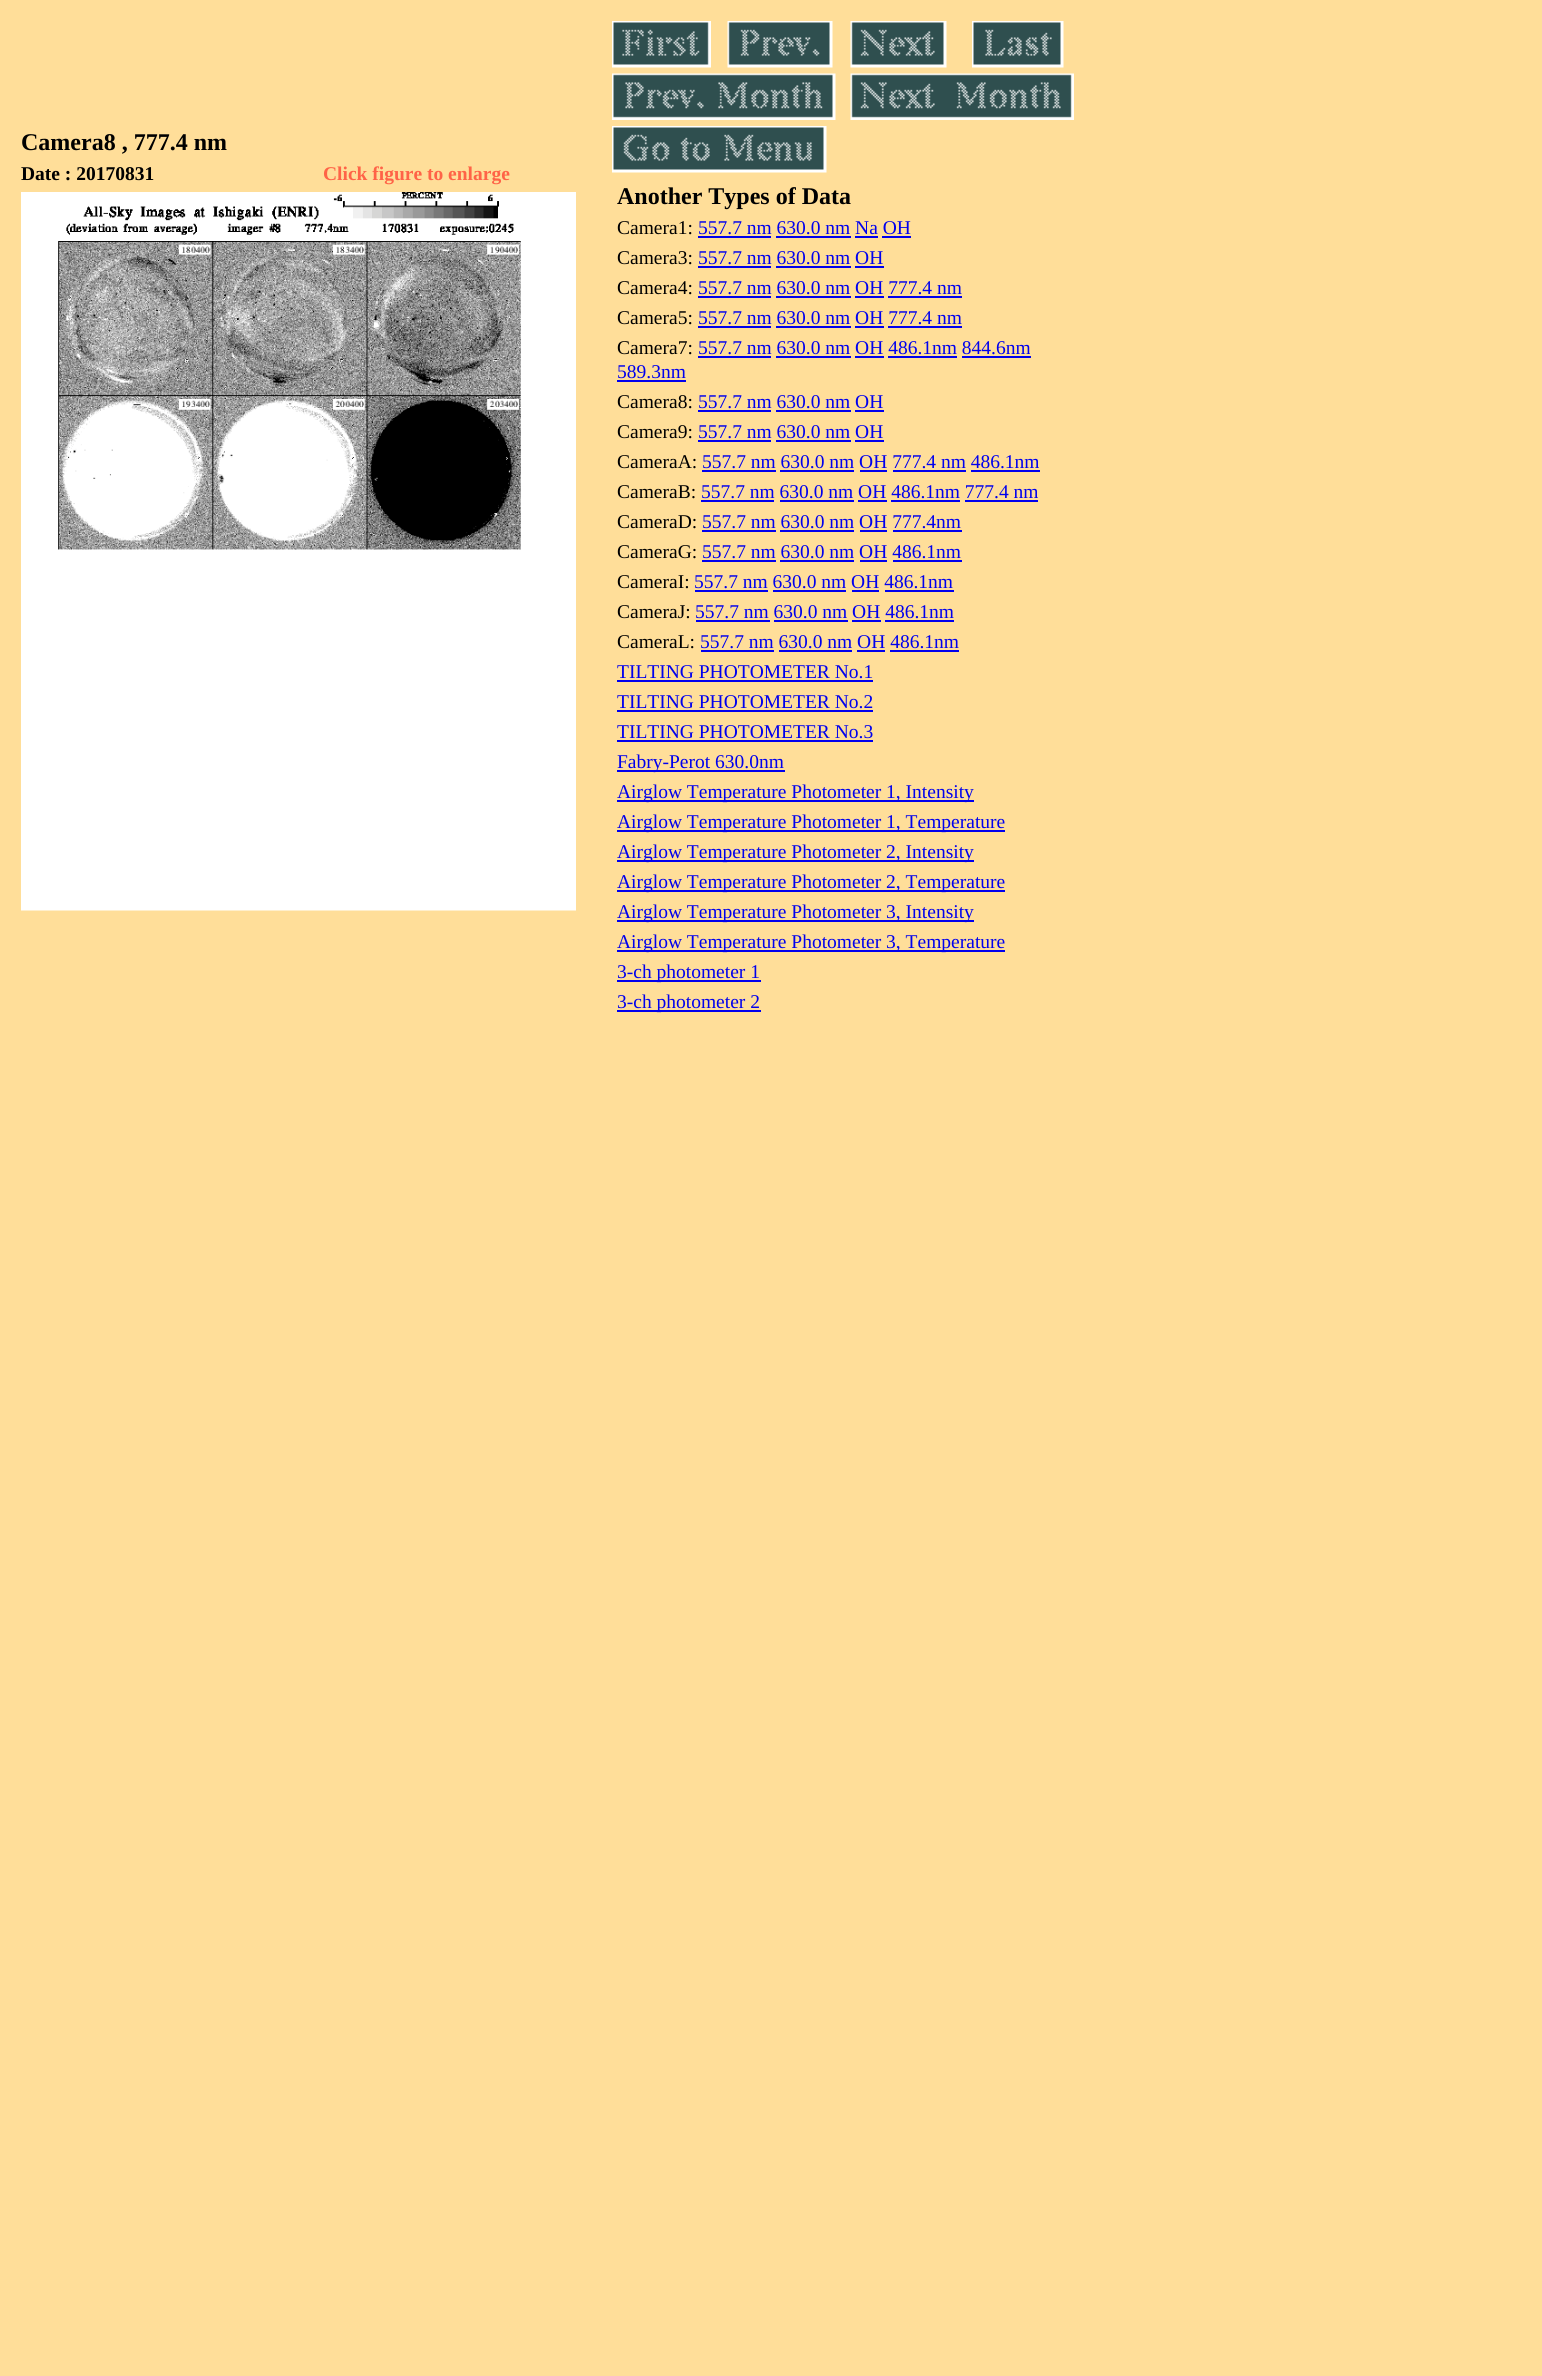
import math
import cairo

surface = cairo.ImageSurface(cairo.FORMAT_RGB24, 1542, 2376)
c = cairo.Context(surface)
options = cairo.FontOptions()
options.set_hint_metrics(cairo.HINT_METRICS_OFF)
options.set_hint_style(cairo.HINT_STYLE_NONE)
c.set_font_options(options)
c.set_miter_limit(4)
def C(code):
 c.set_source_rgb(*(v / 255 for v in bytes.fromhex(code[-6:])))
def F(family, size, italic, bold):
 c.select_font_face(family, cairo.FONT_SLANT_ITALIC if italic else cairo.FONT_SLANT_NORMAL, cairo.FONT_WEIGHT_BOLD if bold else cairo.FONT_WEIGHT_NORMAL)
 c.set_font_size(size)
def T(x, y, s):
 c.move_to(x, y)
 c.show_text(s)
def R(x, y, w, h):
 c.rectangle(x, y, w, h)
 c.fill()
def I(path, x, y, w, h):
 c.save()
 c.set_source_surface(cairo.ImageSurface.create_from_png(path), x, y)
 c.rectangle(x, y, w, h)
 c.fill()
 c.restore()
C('ffde99')
c.paint()
F('Liberation Serif',24,0,1)
C('000000')
T(21,150,'Camera8 , 777.4 nm')
F('Liberation Serif',19.5,0,1)
T(21,180,'Date : 20170831')
C('ff6347')
T(323,180,'Click figure to enlarge')
I('1.png',21,192,555,719)
I('2.png',612,21,99,47)
I('3.png',727,21,106,47)
I('4.png',850,21,97,47)
I('5.png',972,21,92,47)
I('6.png',612,73,224,47)
I('7.png',850,73,224,47)
I('8.png',612,126,215,47)
F('Liberation Serif',24,0,1)
C('000000')
T(617,204,'Another Types of Data')
F('Liberation Serif',19.5,0,0)
T(617,234,'Camera1:')
C('0000ee')
T(698,234,'557.7 nm 630.0 nm Na OH')
R(698,236,73,2)
R(776,236,75,2)
R(855,236,23,2)
R(882,236,29,2)
C('000000')
T(617,264,'Camera3:')
C('0000ee')
T(698,264,'557.7 nm 630.0 nm OH')
R(698,266,73,2)
R(776,266,75,2)
R(855,266,29,2)
C('000000')
T(617,294,'Camera4:')
C('0000ee')
T(698,294,'557.7 nm 630.0 nm OH 777.4 nm')
R(698,296,73,2)
R(776,296,75,2)
R(855,296,29,2)
R(888,296,74,2)
C('000000')
T(617,324,'Camera5:')
C('0000ee')
T(698,324,'557.7 nm 630.0 nm OH 777.4 nm')
R(698,326,73,2)
R(776,326,75,2)
R(855,326,29,2)
R(888,326,74,2)
C('000000')
T(617,354,'Camera7:')
C('0000ee')
T(698,354,'557.7 nm 630.0 nm OH 486.1nm 844.6nm')
R(698,356,73,2)
R(776,356,75,2)
R(855,356,29,2)
R(888,356,69,2)
R(962,356,69,2)
T(617,378,'589.3nm')
R(617,380,69,2)
C('000000')
T(617,408,'Camera8:')
C('0000ee')
T(698,408,'557.7 nm 630.0 nm OH')
R(698,410,73,2)
R(776,410,75,2)
R(855,410,29,2)
C('000000')
T(617,438,'Camera9:')
C('0000ee')
T(698,438,'557.7 nm 630.0 nm OH')
R(698,440,73,2)
R(776,440,75,2)
R(855,440,29,2)
C('000000')
T(617,468,'CameraA:')
C('0000ee')
T(702,468,'557.7 nm 630.0 nm OH 777.4 nm 486.1nm')
R(702,470,74,2)
R(780,470,74,2)
R(860,470,27,2)
R(893,470,73,2)
R(971,470,69,2)
C('000000')
T(617,498,'CameraB:')
C('0000ee')
T(701,498,'557.7 nm 630.0 nm OH 486.1nm 777.4 nm')
R(701,500,73,2)
R(780,500,74,2)
R(858,500,29,2)
R(891,500,69,2)
R(965,500,73,2)
C('000000')
T(617,528,'CameraD:')
C('0000ee')
T(702,528,'557.7 nm 630.0 nm OH 777.4nm')
R(702,530,74,2)
R(780,530,74,2)
R(860,530,27,2)
R(893,530,69,2)
C('000000')
T(617,558,'CameraG:')
C('0000ee')
T(702,558,'557.7 nm 630.0 nm OH 486.1nm')
R(702,560,74,2)
R(780,560,74,2)
R(860,560,27,2)
R(893,560,69,2)
C('000000')
T(617,588,'CameraI:')
C('0000ee')
T(694,588,'557.7 nm 630.0 nm OH 486.1nm')
R(695,590,73,2)
R(773,590,73,2)
R(852,590,27,2)
R(885,590,69,2)
C('000000')
T(617,618,'CameraJ:')
C('0000ee')
T(695,618,'557.7 nm 630.0 nm OH 486.1nm')
R(696,620,74,2)
R(774,620,74,2)
R(852,620,29,2)
R(885,620,69,2)
C('000000')
T(617,648,'CameraL:')
C('0000ee')
T(700,648,'557.7 nm 630.0 nm OH 486.1nm')
R(701,650,73,2)
R(779,650,73,2)
R(857,650,28,2)
R(890,650,69,2)
T(617,678,'TILTING PHOTOMETER No.1')
R(617,680,256,2)
T(617,708,'TILTING PHOTOMETER No.2')
R(617,710,256,2)
T(617,738,'TILTING PHOTOMETER No.3')
R(617,740,256,2)
R(617,770,168,2)
T(617,768,'Fabry-Perot 630.0nm')
R(617,800,357,2)
T(617,798,'Airglow Temperature Photometer 1, Intensity')
R(617,830,388,2)
T(617,828,'Airglow Temperature Photometer 1, Temperature')
R(617,860,357,2)
T(617,858,'Airglow Temperature Photometer 2, Intensity')
R(617,890,388,2)
T(617,888,'Airglow Temperature Photometer 2, Temperature')
R(617,920,357,2)
T(617,918,'Airglow Temperature Photometer 3, Intensity')
R(617,950,388,2)
T(617,948,'Airglow Temperature Photometer 3, Temperature')
R(617,980,144,2)
T(617,978,'3-ch photometer 1')
R(617,1010,144,2)
T(617,1008,'3-ch photometer 2')
surface.write_to_png('o.png')
